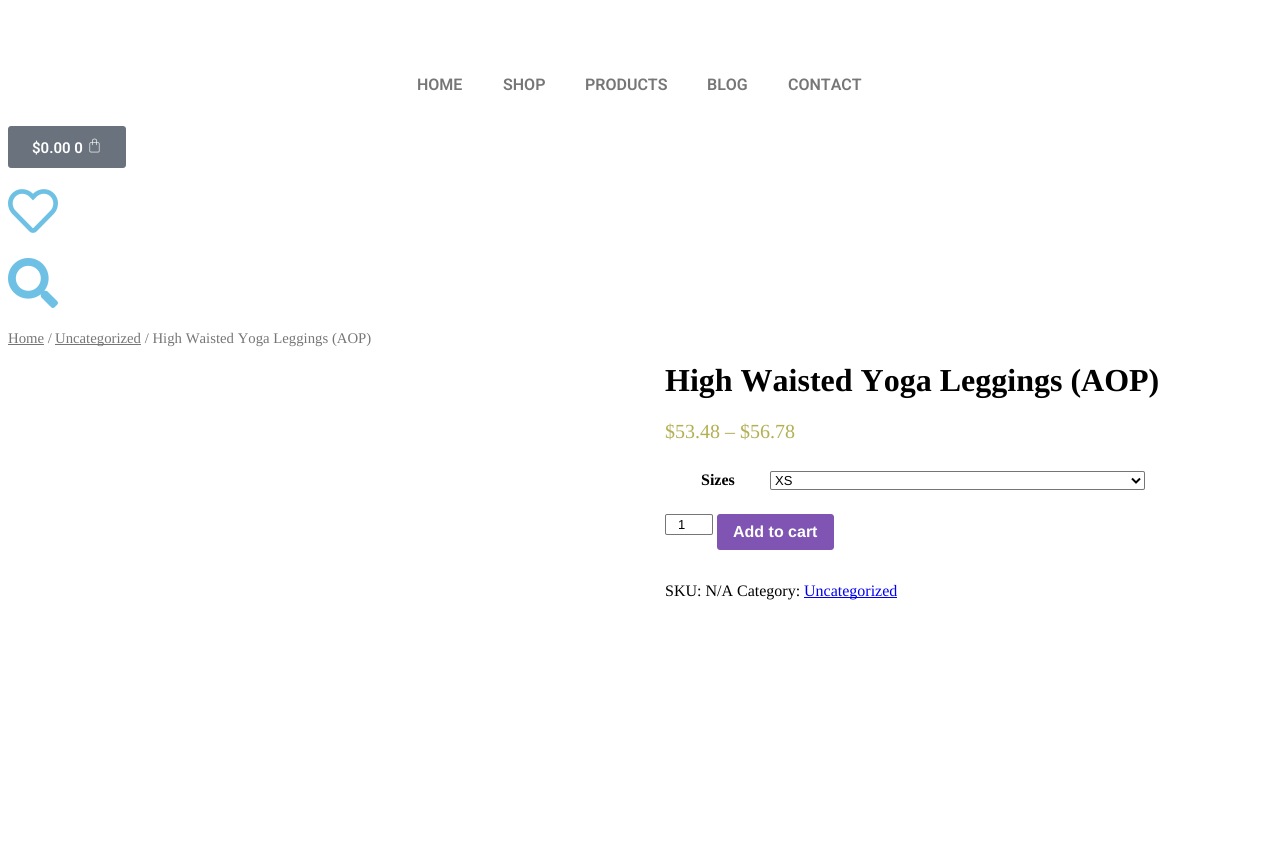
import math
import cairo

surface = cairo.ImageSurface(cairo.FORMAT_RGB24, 1279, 853)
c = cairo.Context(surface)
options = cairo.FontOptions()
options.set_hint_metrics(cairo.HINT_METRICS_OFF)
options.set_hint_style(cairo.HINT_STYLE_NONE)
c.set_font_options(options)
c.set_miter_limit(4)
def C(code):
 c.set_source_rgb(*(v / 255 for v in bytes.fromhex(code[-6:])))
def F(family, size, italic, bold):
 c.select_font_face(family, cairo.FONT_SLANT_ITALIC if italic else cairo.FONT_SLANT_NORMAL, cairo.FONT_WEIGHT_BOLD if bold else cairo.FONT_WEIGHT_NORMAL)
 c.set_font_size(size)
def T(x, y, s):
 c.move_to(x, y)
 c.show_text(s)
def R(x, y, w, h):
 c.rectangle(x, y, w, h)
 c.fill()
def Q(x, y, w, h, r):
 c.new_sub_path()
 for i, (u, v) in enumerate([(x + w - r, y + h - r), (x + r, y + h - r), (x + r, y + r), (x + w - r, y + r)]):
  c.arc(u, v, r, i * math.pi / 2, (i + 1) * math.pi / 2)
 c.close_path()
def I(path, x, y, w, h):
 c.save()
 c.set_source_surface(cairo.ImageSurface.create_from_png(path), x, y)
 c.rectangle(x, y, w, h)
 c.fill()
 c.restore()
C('ffffff')
c.paint()
F('Roboto SemiBold',16,0,0)
C('767676')
T(417,90,'HOME')
T(503,90,'SHOP')
T(585,90,'PRODUCTS')
T(707,90,'BLOG')
T(788,90,'CONTACT')
C('69727d')
Q(8,126,118,42,3)
c.fill()
F('Roboto SemiBold',15,0,0)
C('ffffff')
T(32,153,'$0.00 0')
I('1.png',89,138,11,15)
I('2.png',8,189,50,44)
I('3.png',8,258,50,50)
F('Liberation Serif',14.75,0,0)
C('767676')
T(8,343,'Home /')
R(8,344,36,1)
R(55,344,86,1)
T(55,343,'Uncategorized / High Waisted Yoga Leggings (AOP)')
F('Liberation Serif',32,0,1)
C('000000')
T(665,391,'High Waisted Yoga Leggings (AOP)')
F('Liberation Serif',20,0,0)
C('b3af54')
T(665,438,'$53.48 – $56.78')
F('Liberation Serif',16,0,1)
C('000000')
T(701,485,'Sizes')
Q(770.5,471.5,374,18,1.5)
C('767676')
c.set_line_width(1)
c.stroke()
c.new_path()
c.move_to(1132,478.5)
c.line_to(1136,482.5)
c.line_to(1140,478.5)
C('000000')
c.set_line_width(2)
c.stroke()
F('Liberation Sans',13,0,0)
T(775,485,'XS')
Q(665.5,514.5,47,20,1.5)
C('767676')
c.set_line_width(1)
c.stroke()
C('000000')
T(678,529,'1')
C('7f54b3')
Q(717,514,117,36,3)
c.fill()
F('Liberation Sans',16,0,1)
C('ffffff')
T(733,537,'Add to cart')
F('Liberation Serif',16,0,0)
C('000000')
T(665,596,'SKU: N/A Category:')
C('0000ee')
R(804,597,93,1)
T(804,596,'Uncategorized')
surface.write_to_png('o.png')
